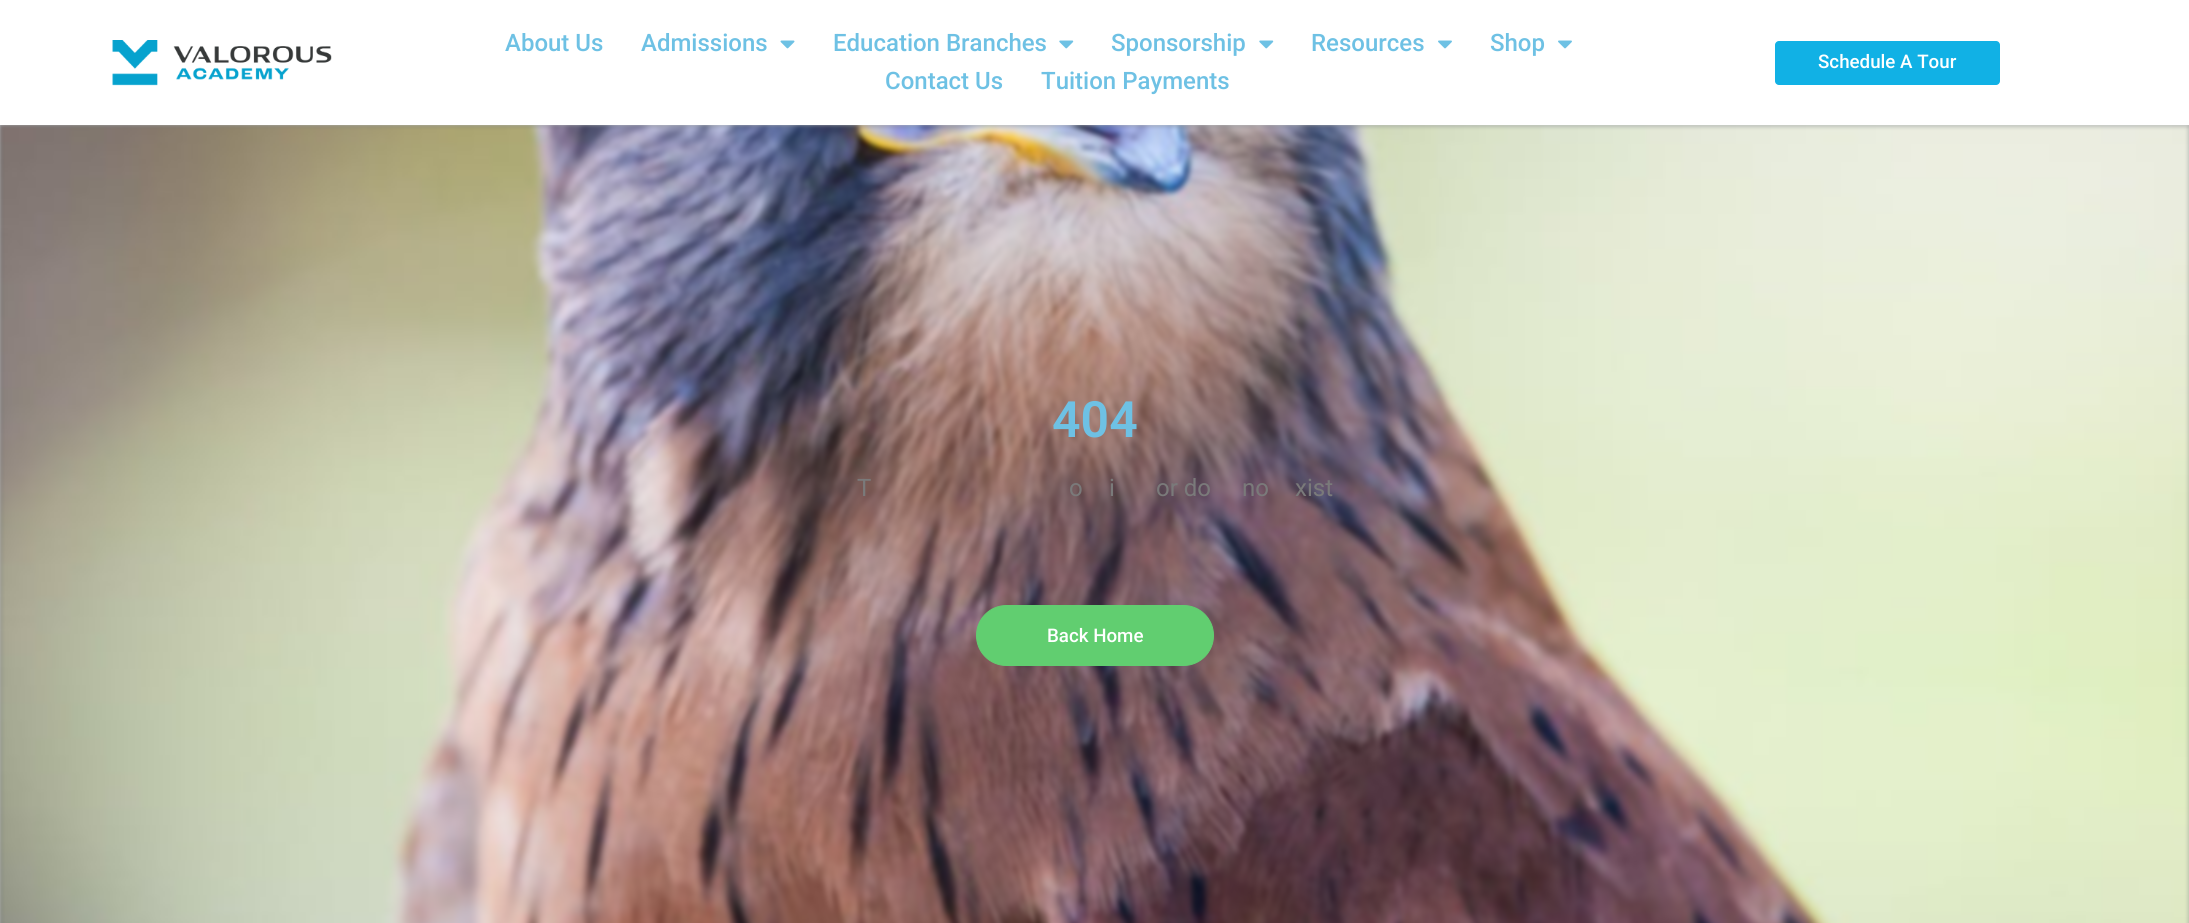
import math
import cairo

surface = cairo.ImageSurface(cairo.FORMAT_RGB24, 2189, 923)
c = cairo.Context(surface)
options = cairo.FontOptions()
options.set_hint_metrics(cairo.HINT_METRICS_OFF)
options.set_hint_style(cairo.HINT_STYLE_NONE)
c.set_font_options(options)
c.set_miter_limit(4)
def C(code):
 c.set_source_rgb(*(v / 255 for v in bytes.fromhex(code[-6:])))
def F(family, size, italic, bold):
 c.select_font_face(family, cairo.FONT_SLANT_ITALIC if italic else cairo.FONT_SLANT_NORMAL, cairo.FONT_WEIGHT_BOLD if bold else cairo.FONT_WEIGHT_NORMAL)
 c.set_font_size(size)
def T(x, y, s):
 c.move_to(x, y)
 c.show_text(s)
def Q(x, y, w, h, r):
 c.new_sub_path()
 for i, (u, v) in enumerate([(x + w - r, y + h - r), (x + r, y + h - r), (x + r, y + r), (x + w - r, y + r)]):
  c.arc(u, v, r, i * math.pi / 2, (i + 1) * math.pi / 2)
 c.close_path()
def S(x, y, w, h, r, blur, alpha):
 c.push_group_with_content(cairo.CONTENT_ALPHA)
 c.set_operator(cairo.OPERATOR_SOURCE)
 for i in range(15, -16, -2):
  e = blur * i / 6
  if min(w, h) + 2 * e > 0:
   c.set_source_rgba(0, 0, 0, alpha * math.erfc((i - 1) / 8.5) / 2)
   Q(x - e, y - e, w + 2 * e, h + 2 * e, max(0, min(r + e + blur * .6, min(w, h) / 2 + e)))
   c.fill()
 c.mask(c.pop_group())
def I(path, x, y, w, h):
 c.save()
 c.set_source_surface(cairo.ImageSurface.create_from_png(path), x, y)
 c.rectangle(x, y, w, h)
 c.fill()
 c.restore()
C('ffffff')
c.paint()
I('1.png',112,40,220,46)
F('Roboto Medium',24,0,0)
C('6ec1e4')
T(505,51,'About Us')
T(641,51,'Admissions')
I('2.png',780,40,15,9)
T(833,51,'Education Branches')
I('3.png',1059,40,15,9)
T(1111,51,'Sponsorship')
I('3.png',1259,40,15,9)
T(1311,51,'Resources')
I('4.png',1438,40,14,9)
T(1490,51,'Shop')
I('4.png',1558,40,14,9)
T(885,89,'Contact Us')
T(1041,89,'Tuition Payments')
C('11b1e5')
Q(1775,41,225,44,4)
c.fill()
F('Roboto Medium',18.75,0,0)
C('ffffff')
T(1818,68,'Schedule A Tour')
c.save()
c.rectangle(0,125,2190,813)
c.clip()
C('54595f')
S(0,125,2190,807,0,3,1)
c.restore()
I('5.png',0,125,2189,798)
F('Roboto SemiBold',50,0,0)
C('6ec1e4')
T(1052,437,'404')
F('Roboto',24,0,0)
C('7a7a7a')
T(857,496,'T')
T(1069,496,'o')
T(1109,496,'i')
T(1156,496,'or do')
T(1242,496,'no')
T(1295,496,'xist')
C('61ce70')
Q(976.5,605.5,237,60,30)
c.fill_preserve()
c.set_line_width(1)
c.stroke()
F('Roboto Medium',18.75,0,0)
C('ffffff')
T(1047,642,'Back Home')
surface.write_to_png('o.png')
